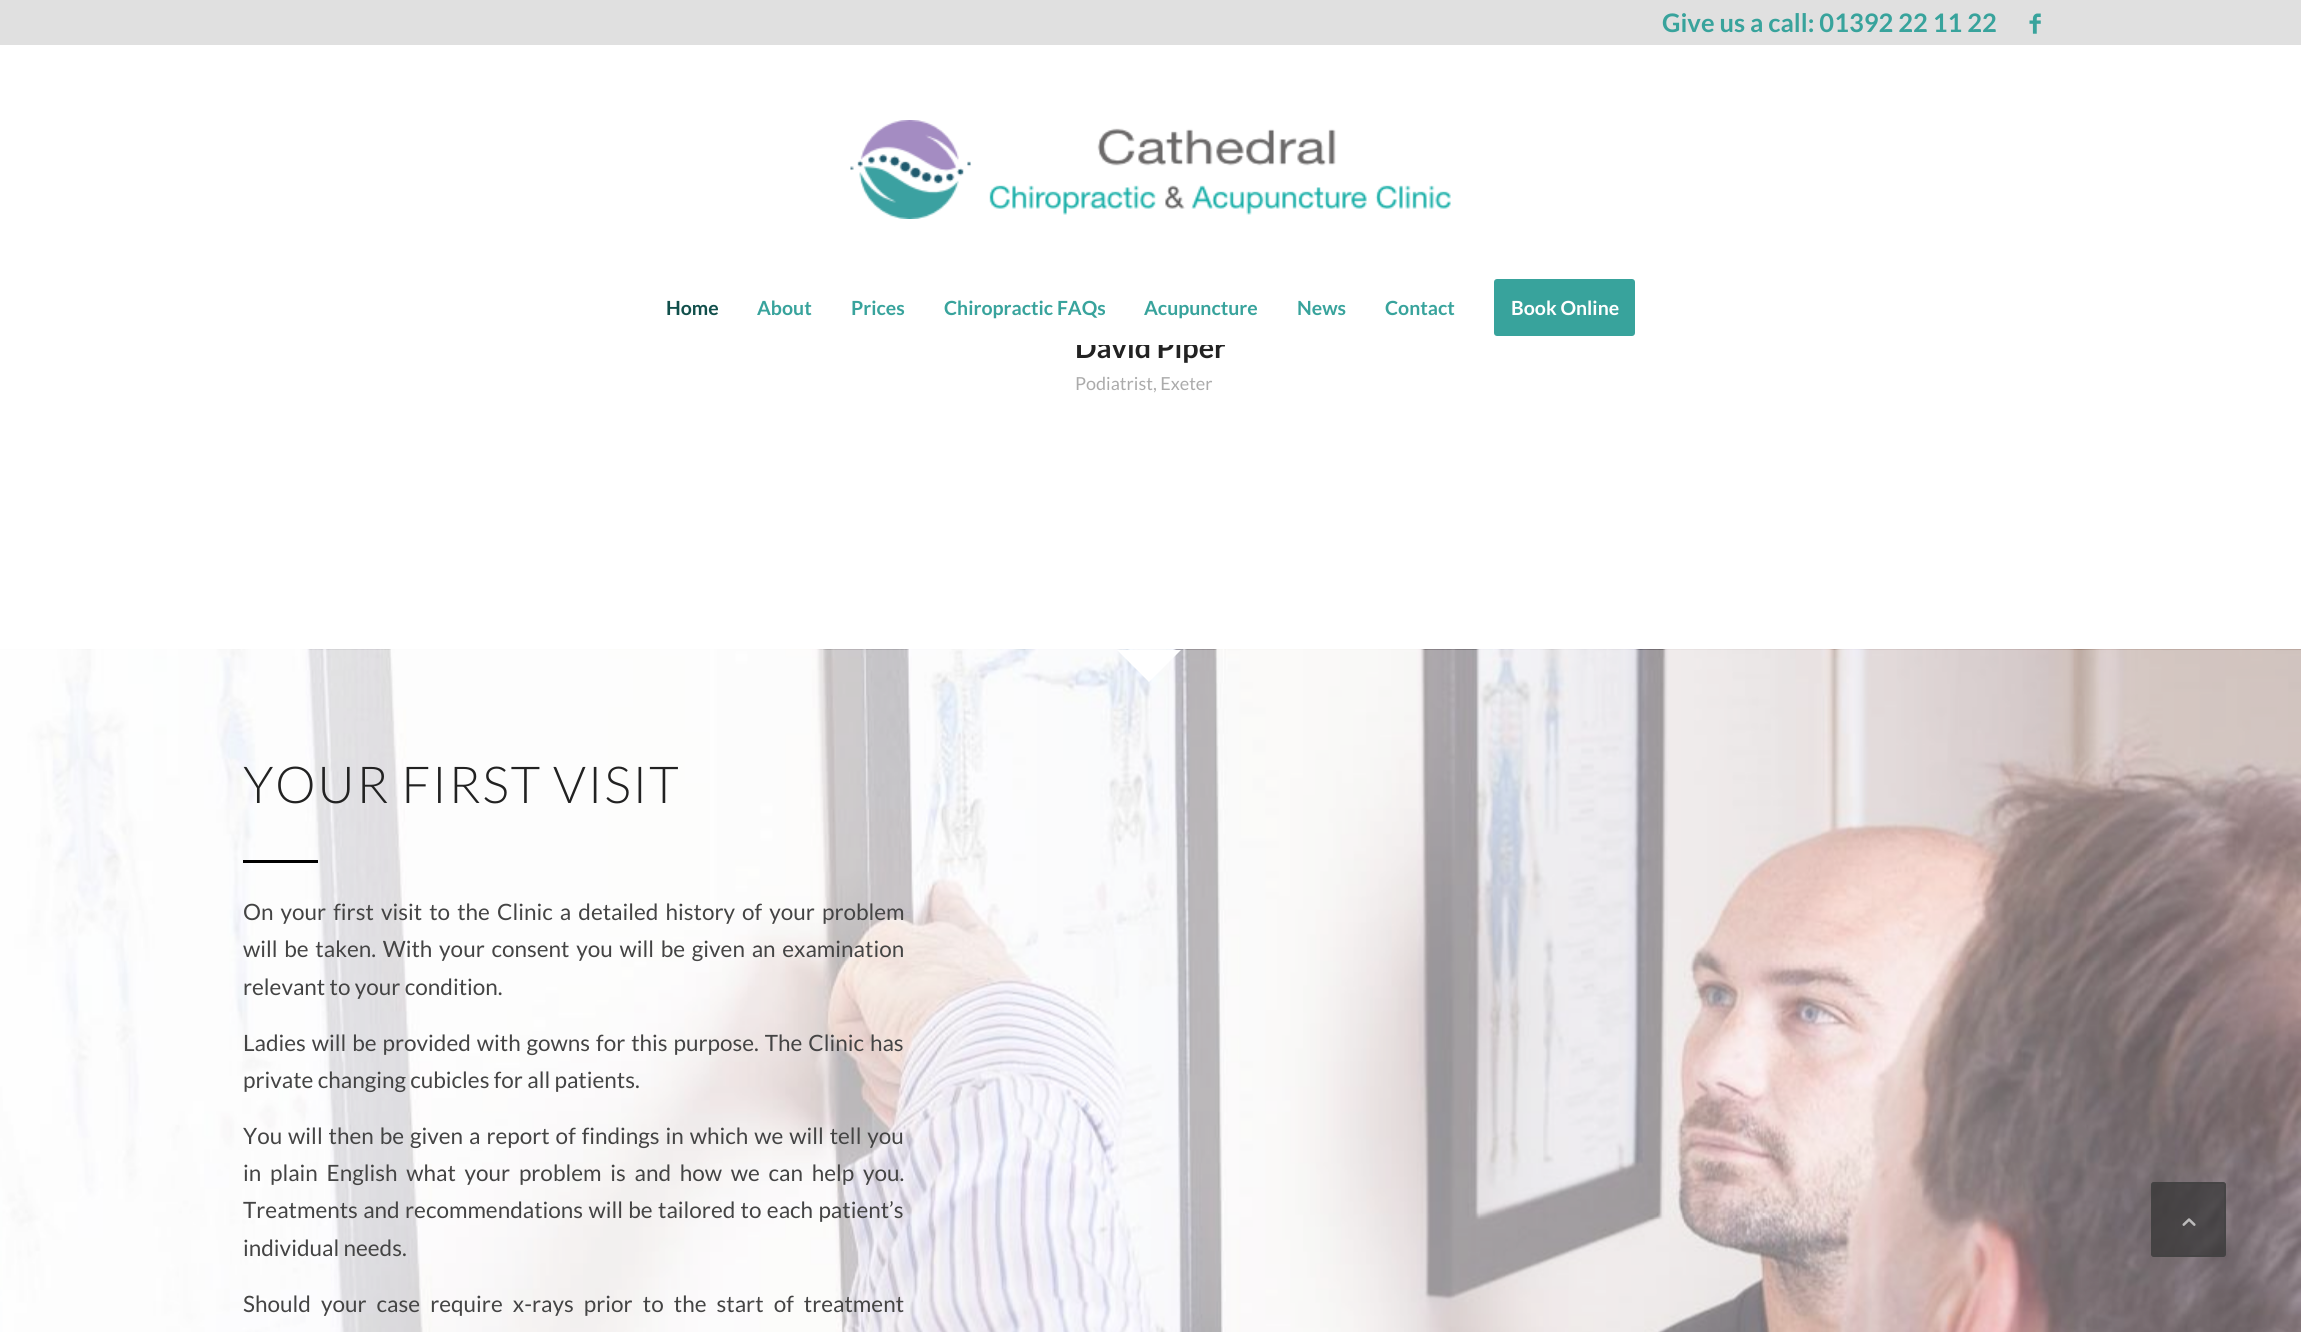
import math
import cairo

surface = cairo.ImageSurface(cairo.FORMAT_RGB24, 2301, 1332)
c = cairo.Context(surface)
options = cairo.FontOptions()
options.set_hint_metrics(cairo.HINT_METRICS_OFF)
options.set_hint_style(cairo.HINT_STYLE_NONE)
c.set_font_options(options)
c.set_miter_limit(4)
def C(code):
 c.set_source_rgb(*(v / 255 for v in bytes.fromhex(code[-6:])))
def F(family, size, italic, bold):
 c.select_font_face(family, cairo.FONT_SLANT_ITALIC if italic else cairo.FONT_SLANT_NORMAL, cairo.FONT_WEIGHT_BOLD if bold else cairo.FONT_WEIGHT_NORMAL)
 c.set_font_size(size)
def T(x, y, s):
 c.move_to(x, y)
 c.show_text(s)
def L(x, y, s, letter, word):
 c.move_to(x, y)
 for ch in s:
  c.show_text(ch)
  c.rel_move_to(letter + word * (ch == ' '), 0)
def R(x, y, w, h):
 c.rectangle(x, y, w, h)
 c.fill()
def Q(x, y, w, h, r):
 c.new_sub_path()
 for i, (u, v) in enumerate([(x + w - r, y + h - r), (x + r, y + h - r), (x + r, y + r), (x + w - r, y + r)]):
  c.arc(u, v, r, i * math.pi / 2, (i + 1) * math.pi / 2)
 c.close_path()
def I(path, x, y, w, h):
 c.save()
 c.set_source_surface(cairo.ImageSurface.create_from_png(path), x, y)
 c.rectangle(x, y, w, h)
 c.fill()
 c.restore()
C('ffffff')
c.paint()
C('e0e0e0')
R(0,0,2301,45)
F('Lato',25.5,0,1)
C('38a39c')
T(1662,32,'Give us a call: 01392 22 11 22')
I('1.png',2029,13,12,21)
I('2.png',850,120,601,99)
F('Lato',19.5,0,1)
C('114f4b')
T(666,315,'Home')
C('38a39c')
T(757,315,'About')
T(851,315,'Prices')
T(944,315,'Chiropractic FAQs')
T(1144,315,'Acupuncture')
T(1297,315,'News')
T(1385,315,'Contact')
Q(1495.5,280.5,138,54,1.5)
c.fill_preserve()
c.set_line_width(3)
c.stroke()
C('ffffff')
T(1511,315,'Book Online')
F('Lato',28.75,0,1)
C('222222')
T(1075,358,'David Piper')
C('ffffff')
R(1077,336,149,9)
F('Lato',18,0,0)
C('ababab')
T(1075,390,'Podiatrist, Exeter')
I('3.png',0,649,2301,683)
c.save()
c.rectangle(1112,650,75,37)
c.clip()
C('ffffff')
c.new_path()
c.move_to(1149,576)
c.line_to(1202,629)
c.line_to(1149,682)
c.line_to(1096,629)
c.close_path()
c.fill()
c.restore()
F('Lato Light',51,0,0)
C('222222')
L(243,803,'YOUR FIRST VISIT',1.5,0)
C('000000')
R(243,860,75,3)
F('Lato',22.5,0,0)
C('444444')
L(243,920,'On your first visit to the Clinic a detailed history of your problem',0,2.75)
L(243,957,'will be taken. With your consent you will be given an examination',0,2.4)
T(243,995,'relevant to your condition.')
L(243,1051,'Ladies will be provided with gowns for this purpose. The Clinic has',0,1.6)
T(243,1088,'private changing cubicles for all patients.')
L(243,1144,'You will then be given a report of findings in which we will tell you',0,1.6)
L(243,1181,'in plain English what your problem is and how we can help you.',0,4.4)
L(243,1218,'Treatments and recommendations will be tailored to each patient’s',0,1)
T(243,1256,'individual needs.')
L(243,1312,'Should your case require x-rays prior to the start of treatment',0,5.75)
c.set_source_rgba(0.2,0.2,0.2,0.7)
Q(2151,1182,75,75,3)
c.fill()
Q(2152,1183,73,73,2)
c.set_source_rgba(0.267,0.267,0.267,0.7)
c.set_line_width(2)
c.stroke()
I('4.png',2182,1218,14,8)
surface.write_to_png('o.png')
